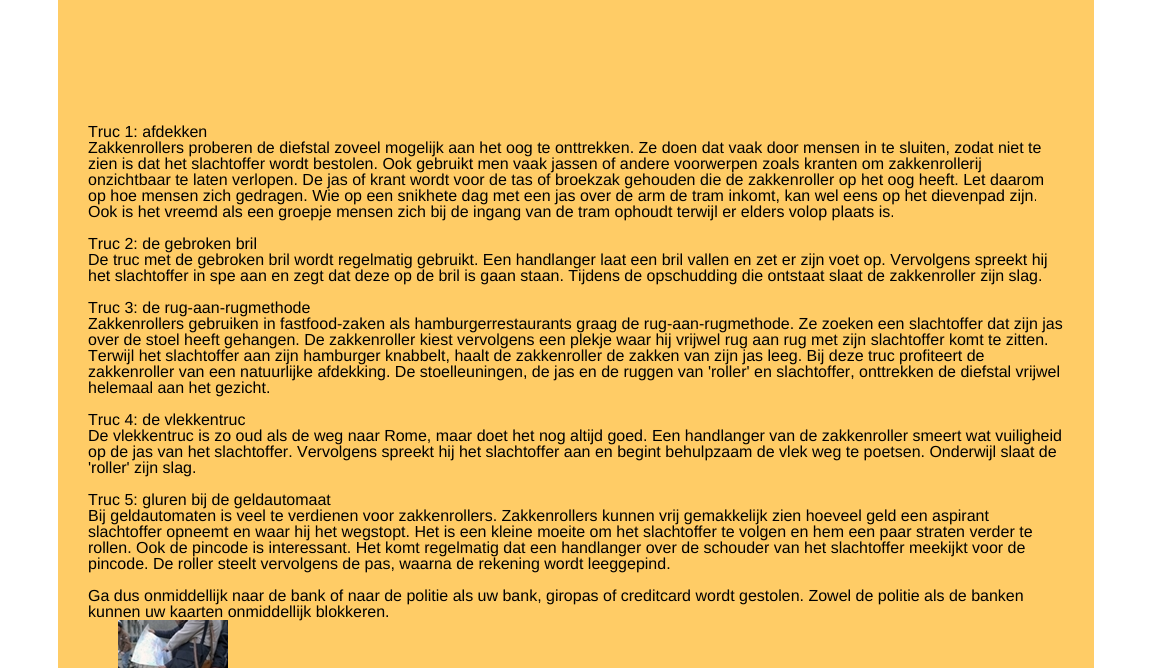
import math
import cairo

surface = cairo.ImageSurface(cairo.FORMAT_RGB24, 1152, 668)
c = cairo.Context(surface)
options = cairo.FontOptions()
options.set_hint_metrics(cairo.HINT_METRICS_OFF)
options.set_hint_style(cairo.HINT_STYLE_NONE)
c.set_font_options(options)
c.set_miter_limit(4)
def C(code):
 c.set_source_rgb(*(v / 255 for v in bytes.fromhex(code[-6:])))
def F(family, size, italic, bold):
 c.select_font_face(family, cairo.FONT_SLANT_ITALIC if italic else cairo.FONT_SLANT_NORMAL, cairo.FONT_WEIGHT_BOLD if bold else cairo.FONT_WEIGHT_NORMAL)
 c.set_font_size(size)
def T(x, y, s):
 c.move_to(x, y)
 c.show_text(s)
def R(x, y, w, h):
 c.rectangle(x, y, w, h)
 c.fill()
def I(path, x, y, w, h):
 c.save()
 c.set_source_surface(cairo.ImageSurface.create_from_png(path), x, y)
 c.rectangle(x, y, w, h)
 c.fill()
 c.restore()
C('ffffff')
c.paint()
C('ffcc66')
R(58,0,1036,668)
F('Liberation Sans',16,0,0)
C('000000')
T(88,137,'Truc 1: afdekken')
T(88,153,'Zakkenrollers proberen de diefstal zoveel mogelijk aan het oog te onttrekken. Ze doen dat vaak door mensen in te sluiten, zodat niet te')
T(88,169,'zien is dat het slachtoffer wordt bestolen. Ook gebruikt men vaak jassen of andere voorwerpen zoals kranten om zakkenrollerij')
T(88,185,'onzichtbaar te laten verlopen. De jas of krant wordt voor de tas of broekzak gehouden die de zakkenroller op het oog heeft. Let daarom')
T(88,201,'op hoe mensen zich gedragen. Wie op een snikhete dag met een jas over de arm de tram inkomt, kan wel eens op het dievenpad zijn.')
T(88,217,'Ook is het vreemd als een groepje mensen zich bij de ingang van de tram ophoudt terwijl er elders volop plaats is.')
T(88,249,'Truc 2: de gebroken bril')
T(88,265,'De truc met de gebroken bril wordt regelmatig gebruikt. Een handlanger laat een bril vallen en zet er zijn voet op. Vervolgens spreekt hij')
T(88,281,'het slachtoffer in spe aan en zegt dat deze op de bril is gaan staan. Tijdens de opschudding die ontstaat slaat de zakkenroller zijn slag.')
T(88,313,'Truc 3: de rug-aan-rugmethode')
T(88,329,'Zakkenrollers gebruiken in fastfood-zaken als hamburgerrestaurants graag de rug-aan-rugmethode. Ze zoeken een slachtoffer dat zijn jas')
T(88,345,'over de stoel heeft gehangen. De zakkenroller kiest vervolgens een plekje waar hij vrijwel rug aan rug met zijn slachtoffer komt te zitten.')
T(88,361,'Terwijl het slachtoffer aan zijn hamburger knabbelt, haalt de zakkenroller de zakken van zijn jas leeg. Bij deze truc profiteert de')
T(88,377,'zakkenroller van een natuurlijke afdekking. De stoelleuningen, de jas en de ruggen van \'roller\' en slachtoffer, onttrekken de diefstal vrijwel')
T(88,393,'helemaal aan het gezicht.')
T(88,425,'Truc 4: de vlekkentruc')
T(88,441,'De vlekkentruc is zo oud als de weg naar Rome, maar doet het nog altijd goed. Een handlanger van de zakkenroller smeert wat vuiligheid')
T(88,457,'op de jas van het slachtoffer. Vervolgens spreekt hij het slachtoffer aan en begint behulpzaam de vlek weg te poetsen. Onderwijl slaat de')
T(88,473,'\'roller\' zijn slag.')
T(88,505,'Truc 5: gluren bij de geldautomaat')
T(88,521,'Bij geldautomaten is veel te verdienen voor zakkenrollers. Zakkenrollers kunnen vrij gemakkelijk zien hoeveel geld een aspirant')
T(88,537,'slachtoffer opneemt en waar hij het wegstopt. Het is een kleine moeite om het slachtoffer te volgen en hem een paar straten verder te')
T(88,553,'rollen. Ook de pincode is interessant. Het komt regelmatig dat een handlanger over de schouder van het slachtoffer meekijkt voor de')
T(88,569,'pincode. De roller steelt vervolgens de pas, waarna de rekening wordt leeggepind.')
T(88,601,'Ga dus onmiddellijk naar de bank of naar de politie als uw bank, giropas of creditcard wordt gestolen. Zowel de politie als de banken')
T(88,617,'kunnen uw kaarten onmiddellijk blokkeren.')
I('1.png',118,620,110,48)
surface.write_to_png('o.png')
